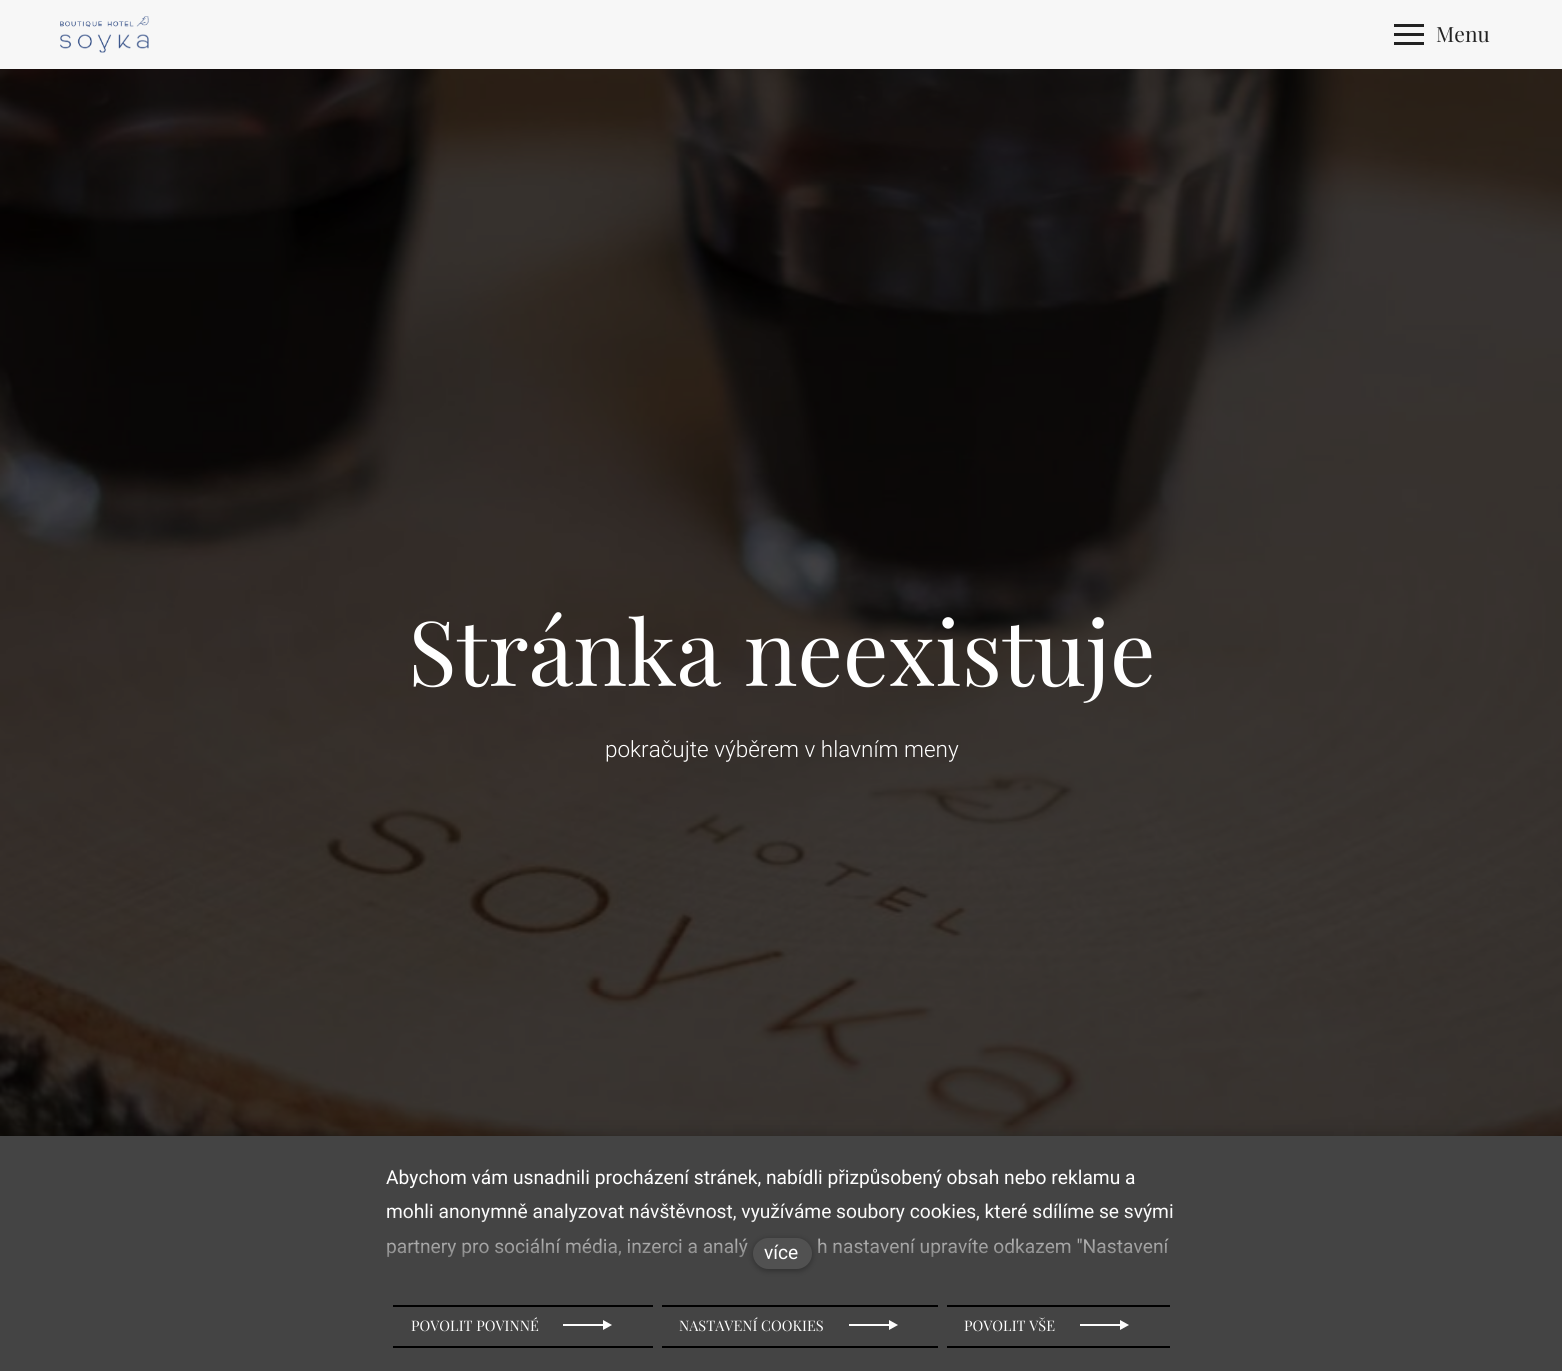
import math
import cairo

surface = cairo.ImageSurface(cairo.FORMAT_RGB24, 1562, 1371)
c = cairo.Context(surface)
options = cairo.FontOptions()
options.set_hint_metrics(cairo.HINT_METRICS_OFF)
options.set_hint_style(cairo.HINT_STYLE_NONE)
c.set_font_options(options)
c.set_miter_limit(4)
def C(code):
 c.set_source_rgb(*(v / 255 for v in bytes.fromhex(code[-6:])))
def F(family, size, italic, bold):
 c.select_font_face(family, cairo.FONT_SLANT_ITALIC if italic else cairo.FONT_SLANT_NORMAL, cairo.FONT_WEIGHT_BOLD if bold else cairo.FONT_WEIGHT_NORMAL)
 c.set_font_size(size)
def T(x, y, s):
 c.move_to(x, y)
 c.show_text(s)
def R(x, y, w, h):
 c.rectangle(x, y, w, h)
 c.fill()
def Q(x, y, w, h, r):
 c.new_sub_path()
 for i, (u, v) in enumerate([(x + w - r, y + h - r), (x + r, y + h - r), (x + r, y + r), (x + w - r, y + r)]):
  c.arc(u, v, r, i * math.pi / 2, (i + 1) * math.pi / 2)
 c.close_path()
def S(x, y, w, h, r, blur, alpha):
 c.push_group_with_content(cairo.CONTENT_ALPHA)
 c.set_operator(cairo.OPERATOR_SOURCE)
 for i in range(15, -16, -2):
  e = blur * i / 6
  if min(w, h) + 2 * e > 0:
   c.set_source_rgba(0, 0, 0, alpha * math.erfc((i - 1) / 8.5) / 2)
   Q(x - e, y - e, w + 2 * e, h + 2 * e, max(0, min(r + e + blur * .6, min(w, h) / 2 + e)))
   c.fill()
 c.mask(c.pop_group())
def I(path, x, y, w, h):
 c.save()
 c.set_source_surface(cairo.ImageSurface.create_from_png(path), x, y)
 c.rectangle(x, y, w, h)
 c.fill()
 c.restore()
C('ffffff')
c.paint()
C('f7f7f7')
R(0,0,1562,69)
I('1.png',60,16,89,37)
C('222222')
R(1394,24,30,3)
R(1394,33,30,3)
R(1394,42,30,3)
F('Playfair Display',21,0,0)
T(1436,42,'Menu')
I('2.png',0,69,1562,1067)
F('Playfair Display',90,0,0)
C('ffffff')
T(408,686,'Stránka neexistuje')
F('Roboto Light',22.5,0,0)
T(605,757,'pokračujte výběrem v hlavním meny')
C('000000')
S(0,1136,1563,235,0,9,.25)
C('444444')
R(0,1136,1562,235)
F('Roboto',19.2,0,0)
C('ffffff')
T(386,1184,'Abychom vám usnadnili procházení stránek, nabídli přizpůsobený obsah nebo reklamu a')
T(386,1218,'mohli anonymně analyzovat návštěvnost, využíváme soubory cookies, které sdílíme se svými')
T(386,1253,'partnery pro sociální média, inzerci a analý')
T(817,1253,'h nastavení upravíte odkazem "Nastavení')
gradient = cairo.LinearGradient(782,1281,782,1212)
gradient.add_color_stop_rgba(0,0.267,0.267,0.267,1)
gradient.add_color_stop_rgba(1,0.267,0.267,0.267,0)
c.set_source(gradient)
R(386,1213,786,45)
C('000000')
S(753,1239,59,32,16,3,.3)
C('515151')
Q(753,1238,59,31,15.5)
c.fill()
C('ffffff')
T(764,1259,'více')
C('000000')
R(393,1305,260,2)
R(393,1346,260,2)
F('Playfair Display',14.5,0,0)
C('ffffff')
T(411,1331,'POVOLIT POVINNÉ')
C('fdfdfd')
c.new_path()
c.move_to(603,1330)
c.line_to(603,1326)
c.line_to(563,1326)
c.line_to(563,1324)
c.line_to(603,1324)
c.line_to(603,1320)
c.line_to(612,1325)
c.close_path()
c.fill()
C('000000')
R(662,1305,276,2)
R(662,1346,276,2)
C('ffffff')
T(679,1331,'NASTAVENÍ COOKIES')
C('fdfdfd')
c.new_path()
c.move_to(889,1330)
c.line_to(889,1326)
c.line_to(849,1326)
c.line_to(849,1324)
c.line_to(889,1324)
c.line_to(889,1320)
c.line_to(898,1325)
c.close_path()
c.fill()
C('000000')
R(947,1305,223,2)
R(947,1346,223,2)
C('ffffff')
T(964,1331,'POVOLIT VŠE')
C('fdfdfd')
c.new_path()
c.move_to(1120,1330)
c.line_to(1120,1326)
c.line_to(1080,1326)
c.line_to(1080,1324)
c.line_to(1120,1324)
c.line_to(1120,1320)
c.line_to(1129,1325)
c.close_path()
c.fill()
surface.write_to_png('o.png')
